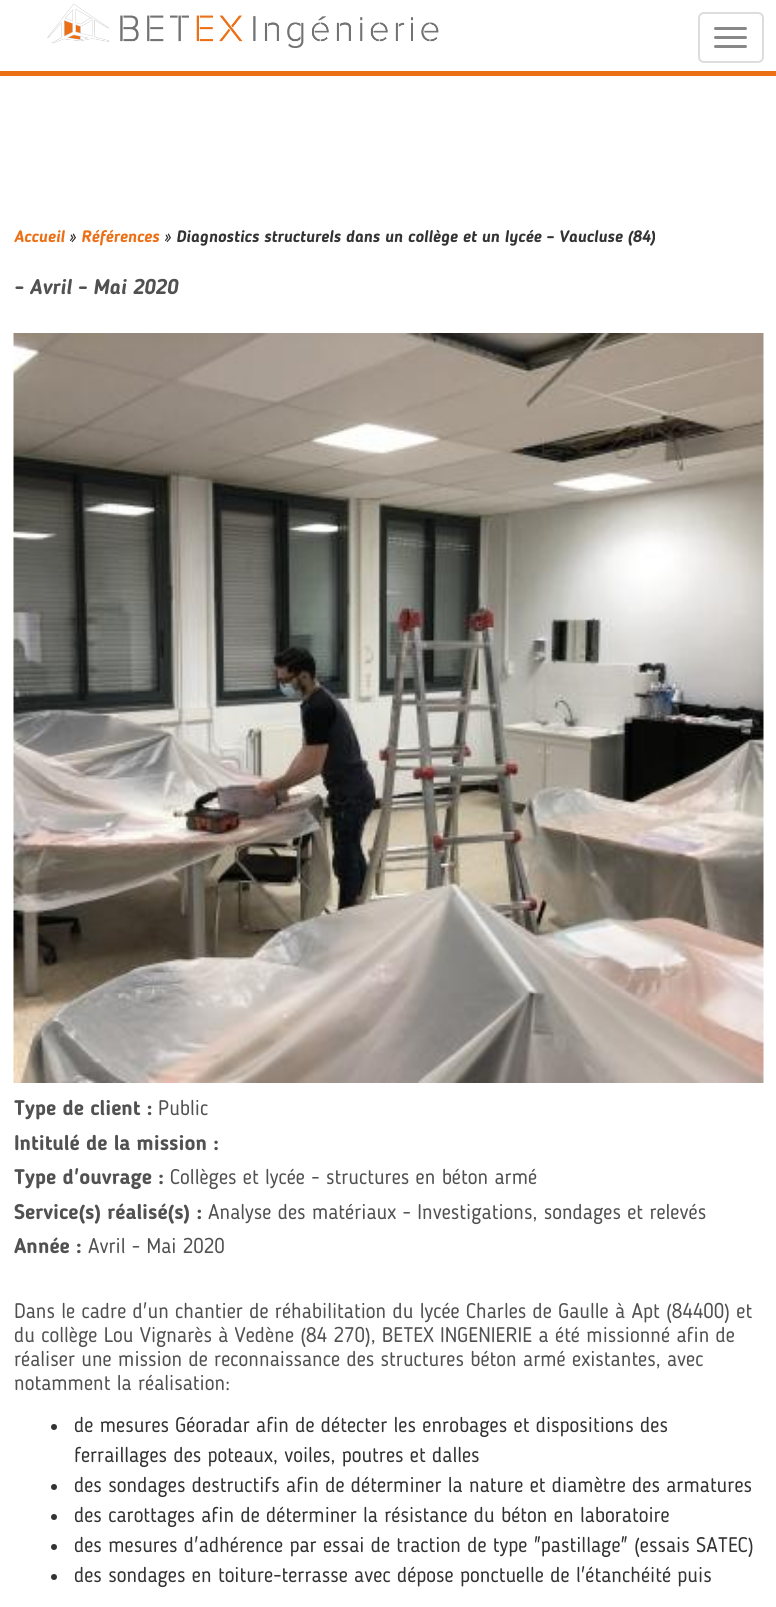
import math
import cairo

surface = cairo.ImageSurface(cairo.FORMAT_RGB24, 776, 1607)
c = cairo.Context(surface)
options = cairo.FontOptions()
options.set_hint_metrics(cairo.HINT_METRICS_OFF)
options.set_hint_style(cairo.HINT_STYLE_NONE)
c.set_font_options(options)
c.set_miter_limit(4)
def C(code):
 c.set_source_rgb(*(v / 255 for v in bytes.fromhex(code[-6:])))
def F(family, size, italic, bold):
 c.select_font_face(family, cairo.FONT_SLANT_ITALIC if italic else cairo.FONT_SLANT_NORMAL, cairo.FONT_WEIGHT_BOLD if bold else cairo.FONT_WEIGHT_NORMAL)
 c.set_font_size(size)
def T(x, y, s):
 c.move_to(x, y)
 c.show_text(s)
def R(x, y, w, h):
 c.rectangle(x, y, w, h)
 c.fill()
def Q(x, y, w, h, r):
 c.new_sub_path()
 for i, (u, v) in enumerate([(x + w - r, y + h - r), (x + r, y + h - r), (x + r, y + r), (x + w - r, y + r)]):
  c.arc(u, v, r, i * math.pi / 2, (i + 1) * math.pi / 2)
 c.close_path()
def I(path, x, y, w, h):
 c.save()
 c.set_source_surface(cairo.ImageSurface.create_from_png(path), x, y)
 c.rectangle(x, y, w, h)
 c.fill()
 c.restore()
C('ffffff')
c.paint()
C('ec6f15')
R(0,71,776,5)
I('1.png',47,3,392,45)
Q(699,13,64,49,5)
C('dddddd')
c.stroke()
C('888888')
Q(714,27,33,3,1.5)
c.fill()
Q(714,36,33,3,1.5)
c.fill()
Q(714,45,33,3,1.5)
c.fill()
F('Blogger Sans',16.5,1,1)
C('ec6f15')
T(14,242,'Accueil')
C('333333')
T(69,242,'»')
C('ec6f15')
T(81,242,'Références')
C('333333')
T(164,242,'» Diagnostics structurels dans un collège et un lycée – Vaucluse (84)')
F('Blogger Sans',21,1,1)
C('515151')
T(14,294,'- Avril - Mai 2020')
I('2.png',13,333,751,750)
F('Blogger Sans',21,0,1)
T(14,1115,'Type de client :')
F('Blogger Sans',21,0,0)
T(158,1115,'Public')
F('Blogger Sans',21,0,1)
T(14,1150,'Intitulé de la mission :')
T(14,1184,'Type d\'ouvrage :')
F('Blogger Sans',21,0,0)
T(170,1184,'Collèges et lycée - structures en béton armé')
F('Blogger Sans',21,0,1)
T(14,1219,'Service(s) réalisé(s) :')
F('Blogger Sans',21,0,0)
T(208,1219,'Analyse des matériaux - Investigations, sondages et relevés')
F('Blogger Sans',21,0,1)
T(14,1253,'Année :')
F('Blogger Sans',21,0,0)
T(88,1253,'Avril - Mai 2020')
T(14,1318,'Dans le cadre d\'un chantier de réhabilitation du lycée Charles de Gaulle à Apt (84400) et')
T(14,1342,'du collège Lou Vignarès à Vedène (84 270), BETEX INGENIERIE a été missionné afin de')
T(14,1366,'réaliser une mission de reconnaissance des structures béton armé existantes, avec')
T(14,1390,'notamment la réalisation:')
C('333333')
c.new_path()
c.arc(54,1427,3,0,2 * math.pi)
c.fill()
T(74,1432,'de mesures Géoradar afin de détecter les enrobages et dispositions des')
T(74,1462,'ferraillages des poteaux, voiles, poutres et dalles')
c.new_path()
c.arc(54,1487,3,0,2 * math.pi)
c.fill()
T(74,1492,'des sondages destructifs afin de déterminer la nature et diamètre des armatures')
c.new_path()
c.arc(54,1517,3,0,2 * math.pi)
c.fill()
T(74,1522,'des carottages afin de déterminer la résistance du béton en laboratoire')
c.new_path()
c.arc(54,1547,3,0,2 * math.pi)
c.fill()
T(74,1552,'des mesures d\'adhérence par essai de traction de type "pastillage" (essais SATEC)')
c.new_path()
c.arc(54,1577,3,0,2 * math.pi)
c.fill()
T(74,1582,'des sondages en toiture-terrasse avec dépose ponctuelle de l\'étanchéité puis')
surface.write_to_png('o.png')
